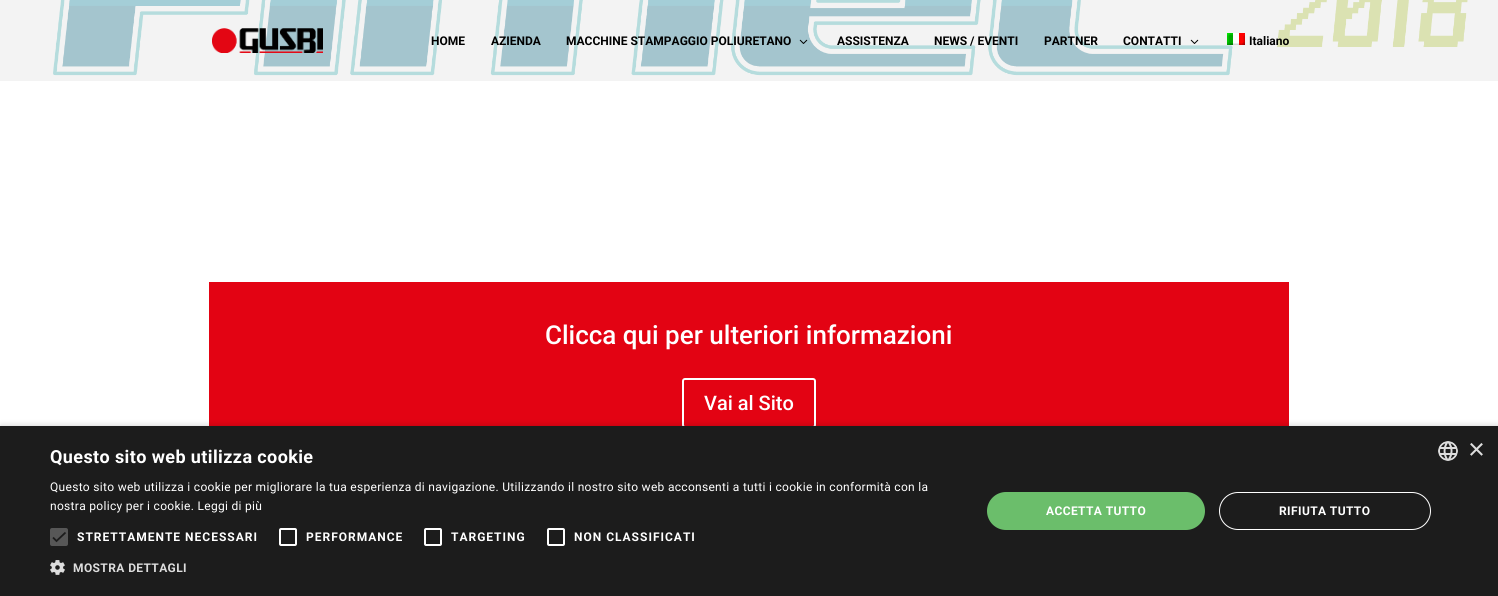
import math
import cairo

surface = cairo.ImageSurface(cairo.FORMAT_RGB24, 1498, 596)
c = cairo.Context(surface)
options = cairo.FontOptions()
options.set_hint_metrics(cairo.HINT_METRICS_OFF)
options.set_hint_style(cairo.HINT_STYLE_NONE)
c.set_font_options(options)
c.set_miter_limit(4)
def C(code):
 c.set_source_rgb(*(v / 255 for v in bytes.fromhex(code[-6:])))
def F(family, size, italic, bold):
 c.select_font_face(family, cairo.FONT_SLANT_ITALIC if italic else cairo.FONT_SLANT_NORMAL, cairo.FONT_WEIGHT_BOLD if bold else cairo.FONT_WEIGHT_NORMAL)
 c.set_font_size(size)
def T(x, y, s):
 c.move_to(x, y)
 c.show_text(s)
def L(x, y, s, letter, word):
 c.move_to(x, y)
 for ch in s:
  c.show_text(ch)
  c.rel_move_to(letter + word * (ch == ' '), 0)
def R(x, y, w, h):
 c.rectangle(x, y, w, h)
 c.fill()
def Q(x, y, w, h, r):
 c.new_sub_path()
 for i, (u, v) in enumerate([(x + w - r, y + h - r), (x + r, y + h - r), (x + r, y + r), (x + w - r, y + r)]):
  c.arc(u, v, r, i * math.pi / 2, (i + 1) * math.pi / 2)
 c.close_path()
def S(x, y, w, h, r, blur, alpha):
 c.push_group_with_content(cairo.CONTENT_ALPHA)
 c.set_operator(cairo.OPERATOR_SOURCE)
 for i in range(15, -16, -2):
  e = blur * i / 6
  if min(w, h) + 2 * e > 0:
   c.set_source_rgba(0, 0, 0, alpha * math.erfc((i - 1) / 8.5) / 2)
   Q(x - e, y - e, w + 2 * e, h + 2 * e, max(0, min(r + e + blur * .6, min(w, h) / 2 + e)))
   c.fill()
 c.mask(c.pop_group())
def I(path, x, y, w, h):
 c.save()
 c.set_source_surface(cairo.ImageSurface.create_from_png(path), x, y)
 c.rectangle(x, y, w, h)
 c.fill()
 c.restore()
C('ffffff')
c.paint()
C('f3f3f3')
R(0,0,1498,81)
I('5.png',53,0,1415,76)
I('1.png',212,28,111,25)
F('Roboto',12,0,1)
C('000000')
T(431,45,'HOME')
T(491,45,'AZIENDA')
T(566,45,'MACCHINE STAMPAGGIO POLIURETANO')
I('2.png',799,39,9,5)
T(837,45,'ASSISTENZA')
T(934,45,'NEWS / EVENTI')
T(1044,45,'PARTNER')
T(1123,45,'CONTATTI')
I('3.png',1190,39,9,5)
I('4.png',1227,33,18,12)
T(1249,45,'Italiano')
C('e30313')
R(209,282,1080,144)
F('Roboto Medium',26,0,0)
C('ffffff')
T(545,344,'Clicca qui per ulteriori informazioni')
Q(683,379,132,48,2)
c.stroke()
F('Roboto Medium',20,0,0)
T(704,410,'Vai al Sito')
C('000000')
S(1,428,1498,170,0,4,.35)
C('1c1c1c')
R(0,426,1498,170)
F('Roboto',18,0,1)
C('ffffff')
L(50,463,'Questo sito web utilizza cookie',.4,0)
F('Roboto',12,0,0)
L(50,491,'Questo sito web utilizza i cookie per migliorare la tua esperienza di navigazione. Utilizzando il nostro sito web acconsenti a tutti i cookie in conformità con la',.3,0)
L(50,510,'nostra policy per i cookie. Leggi di più',.3,0)
C('575757')
Q(50,528,18,18,2)
c.fill()
c.new_path()
c.move_to(53,537.5)
c.line_to(56.5,541)
c.line_to(65.5,532.5)
C('1c1c1c')
c.set_line_width(1.8)
c.stroke()
F('Roboto',12,0,1)
C('ffffff')
L(77,541,'STRETTAMENTE NECESSARI',1,0)
Q(280,529,16,16,1)
c.set_line_width(2)
c.stroke()
L(306,541,'PERFORMANCE',1,0)
Q(425,529,16,16,1)
c.stroke()
L(451,541,'TARGETING',1,0)
Q(548,529,16,16,1)
c.stroke()
L(574,541,'NON CLASSIFICATI',1,0)
I('6.png',50,560,15,15)
C('dddddd')
L(73,572,'MOSTRA DETTAGLI',.4,0)
C('6bbe6b')
Q(987,492,218,38,19)
c.fill()
C('ffffff')
L(1046,515,'ACCETTA TUTTO',.4,0)
Q(1219.5,492.5,211,37,18.5)
c.set_line_width(1)
c.stroke()
L(1279,515,'RIFIUTA TUTTO',.4,0)
I('7.png',1438,441,20,20)
F('Liberation Sans',29,0,0)
C('dddddd')
T(1468,459,'×')
surface.write_to_png('o.png')
